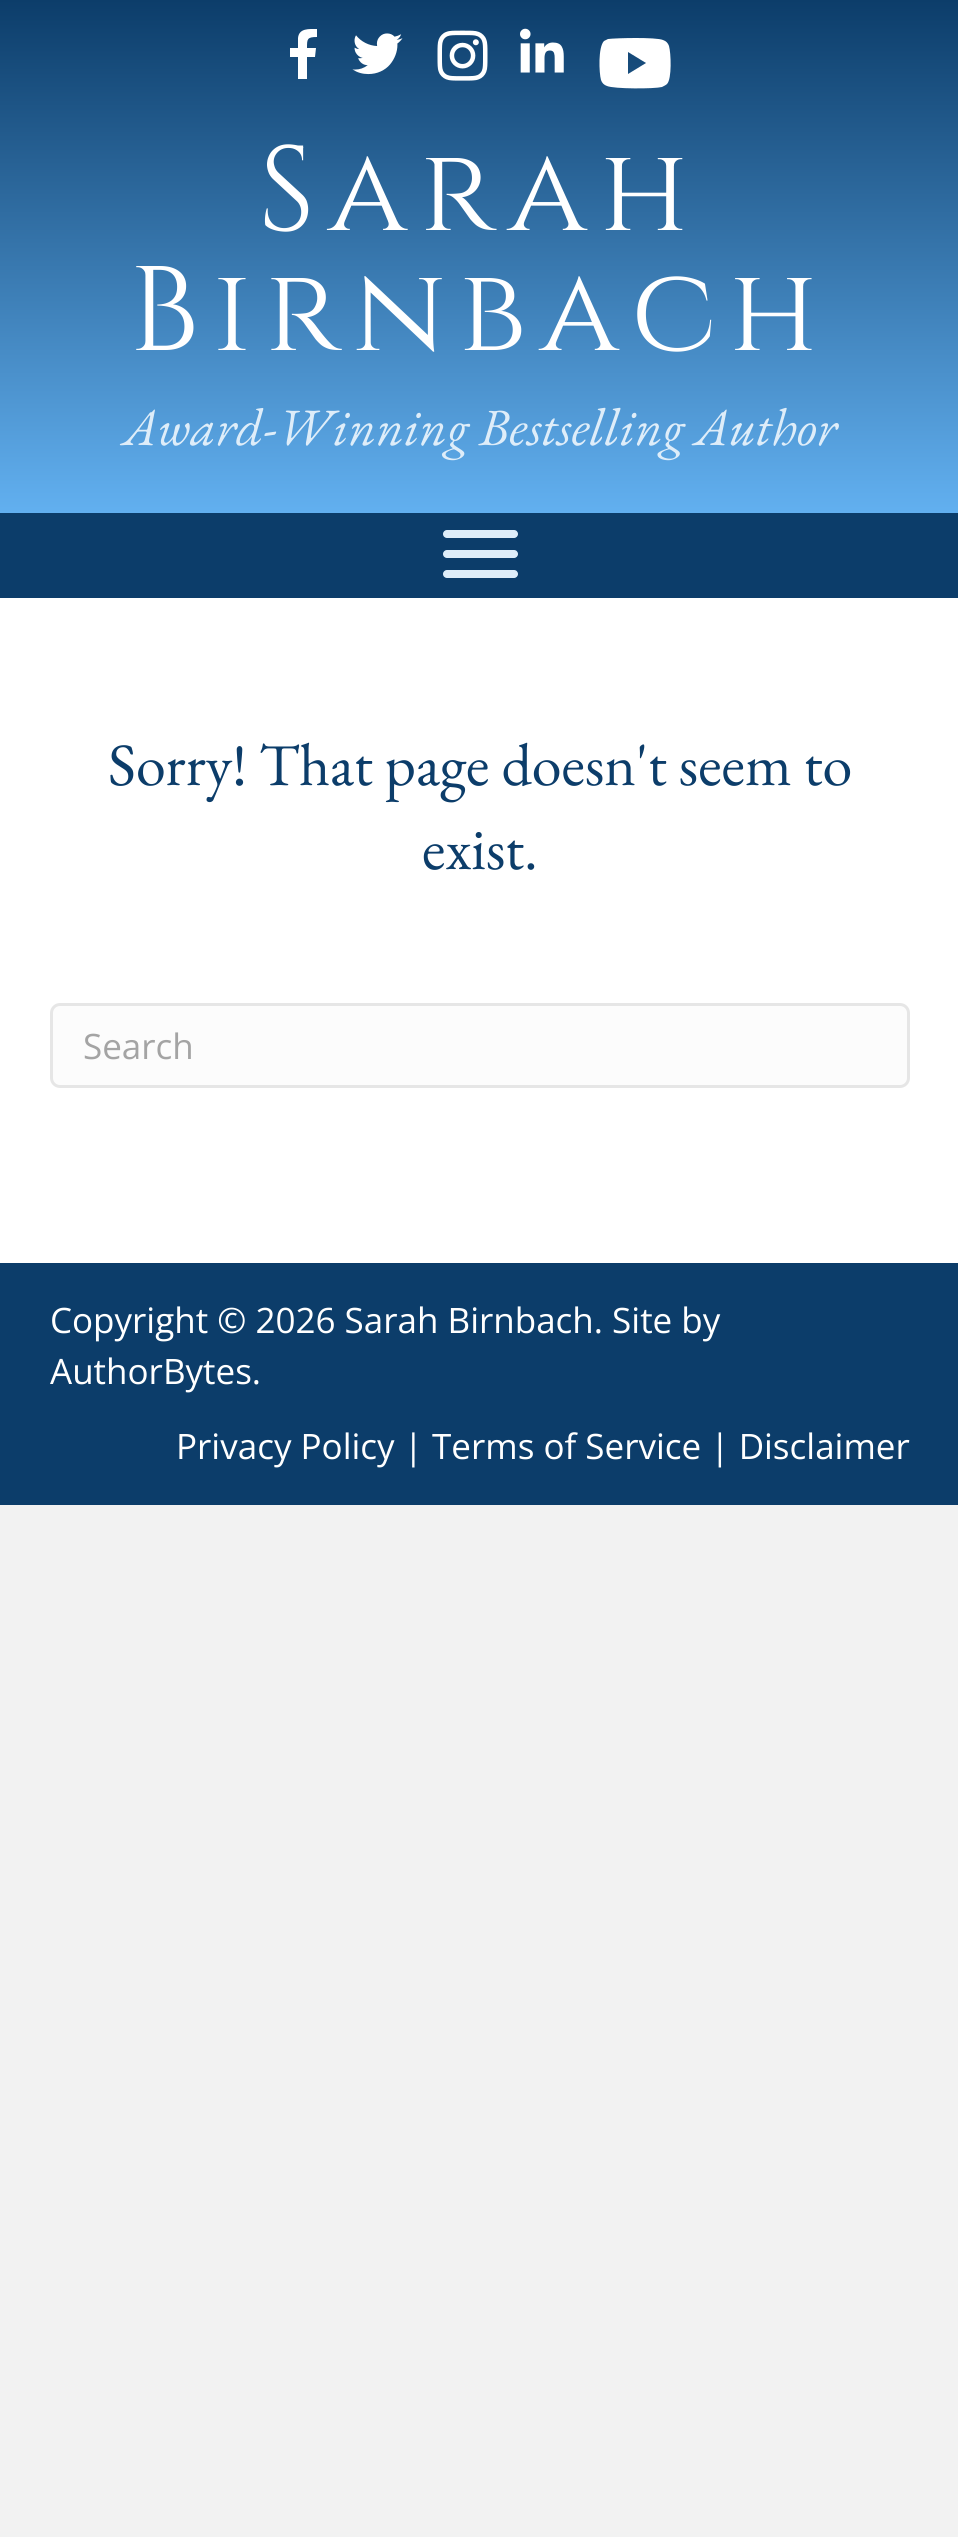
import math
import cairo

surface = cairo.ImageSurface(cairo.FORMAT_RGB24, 958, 2537)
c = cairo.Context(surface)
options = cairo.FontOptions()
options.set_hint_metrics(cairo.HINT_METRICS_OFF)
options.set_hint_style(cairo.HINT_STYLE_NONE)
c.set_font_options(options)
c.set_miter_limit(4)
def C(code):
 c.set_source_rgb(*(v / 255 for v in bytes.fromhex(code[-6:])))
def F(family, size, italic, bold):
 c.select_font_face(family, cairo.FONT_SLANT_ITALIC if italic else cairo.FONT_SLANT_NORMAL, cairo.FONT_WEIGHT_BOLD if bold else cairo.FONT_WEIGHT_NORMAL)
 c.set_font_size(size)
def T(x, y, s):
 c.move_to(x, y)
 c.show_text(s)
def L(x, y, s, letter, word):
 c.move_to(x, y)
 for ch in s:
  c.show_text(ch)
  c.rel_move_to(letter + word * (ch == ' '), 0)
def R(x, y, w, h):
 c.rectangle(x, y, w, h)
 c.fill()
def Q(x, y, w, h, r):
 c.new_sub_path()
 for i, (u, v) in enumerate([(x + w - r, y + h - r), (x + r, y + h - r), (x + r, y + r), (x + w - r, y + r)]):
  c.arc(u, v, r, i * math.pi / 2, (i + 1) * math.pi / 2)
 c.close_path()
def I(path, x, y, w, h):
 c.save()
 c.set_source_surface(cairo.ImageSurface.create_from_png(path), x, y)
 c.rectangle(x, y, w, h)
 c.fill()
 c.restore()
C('f2f2f2')
c.paint()
gradient = cairo.LinearGradient(480,0,480,513)
gradient.add_color_stop_rgba(0,0.047,0.239,0.416,1)
gradient.add_color_stop_rgba(1,0.384,0.69,0.941,1)
c.set_source(gradient)
R(0,0,958,513)
C('ffffff')
c.new_path()
c.move_to(315,57)
c.line_to(307,57)
c.line_to(307,79)
c.line_to(298,79)
c.line_to(298,57)
c.line_to(290,57)
c.line_to(290,48)
c.line_to(298,48)
c.line_to(298,38)
c.curve_to(299,28,309,29,317,29)
c.line_to(317,37)
c.curve_to(307,37,307,39,307,48)
c.line_to(316,48)
c.close_path()
c.fill()
I('1.png',352,33,51,42)
I('2.png',437,30,51,51)
I('3.png',520,28,44,45)
c.new_path()
c.move_to(669,46)
c.curve_to(668,43,666,41,663,40)
c.curve_to(656,37,616,38,608,39)
c.line_to(604,41)
c.curve_to(598,47,599,73,601,80)
c.curve_to(602,83,604,85,607,86)
c.curve_to(614,89,654,89,662,87)
c.curve_to(664,86,666,85,667,84)
c.curve_to(672,79,671,53,669,46)
c.close_path()
c.move_to(628,74)
c.line_to(628,52)
c.line_to(646,63)
c.close_path()
c.fill()
F('Cinzel',120,0,0)
L(258,230,'Sarah',12.5,0)
L(129,350,'Birnbach',12.5,0)
F('EB Garamond',52.5,1,0)
C('deedf9')
T(123,445,'Award-Winning Bestselling Author')
C('0c3d6a')
R(0,513,958,85)
C('deedf9')
Q(443,550,75,8,4)
c.fill()
Q(443,530,75,8,4)
c.fill()
Q(443,570,75,8,4)
c.fill()
C('ffffff')
R(0,598,958,665)
F('EB Garamond',60,0,0)
C('0c3d6a')
T(108,785,'Sorry! That page doesn\'t seem to')
T(422,869,'exist.')
C('fcfcfc')
Q(51.5,1004.5,857,82,8.5)
c.fill_preserve()
C('e6e6e6')
c.set_line_width(3)
c.stroke()
F('Open Sans',35,0,0)
C('a4a4a4')
T(83,1059,'Search')
C('0c3d6a')
R(0,1263,958,242)
C('ffffff')
T(50,1333,'Copyright © 2026 Sarah Birnbach. Site by')
T(50,1384,'AuthorBytes.')
T(176,1459,'Privacy Policy | Terms of Service | Disclaimer')
surface.write_to_png('o.png')
